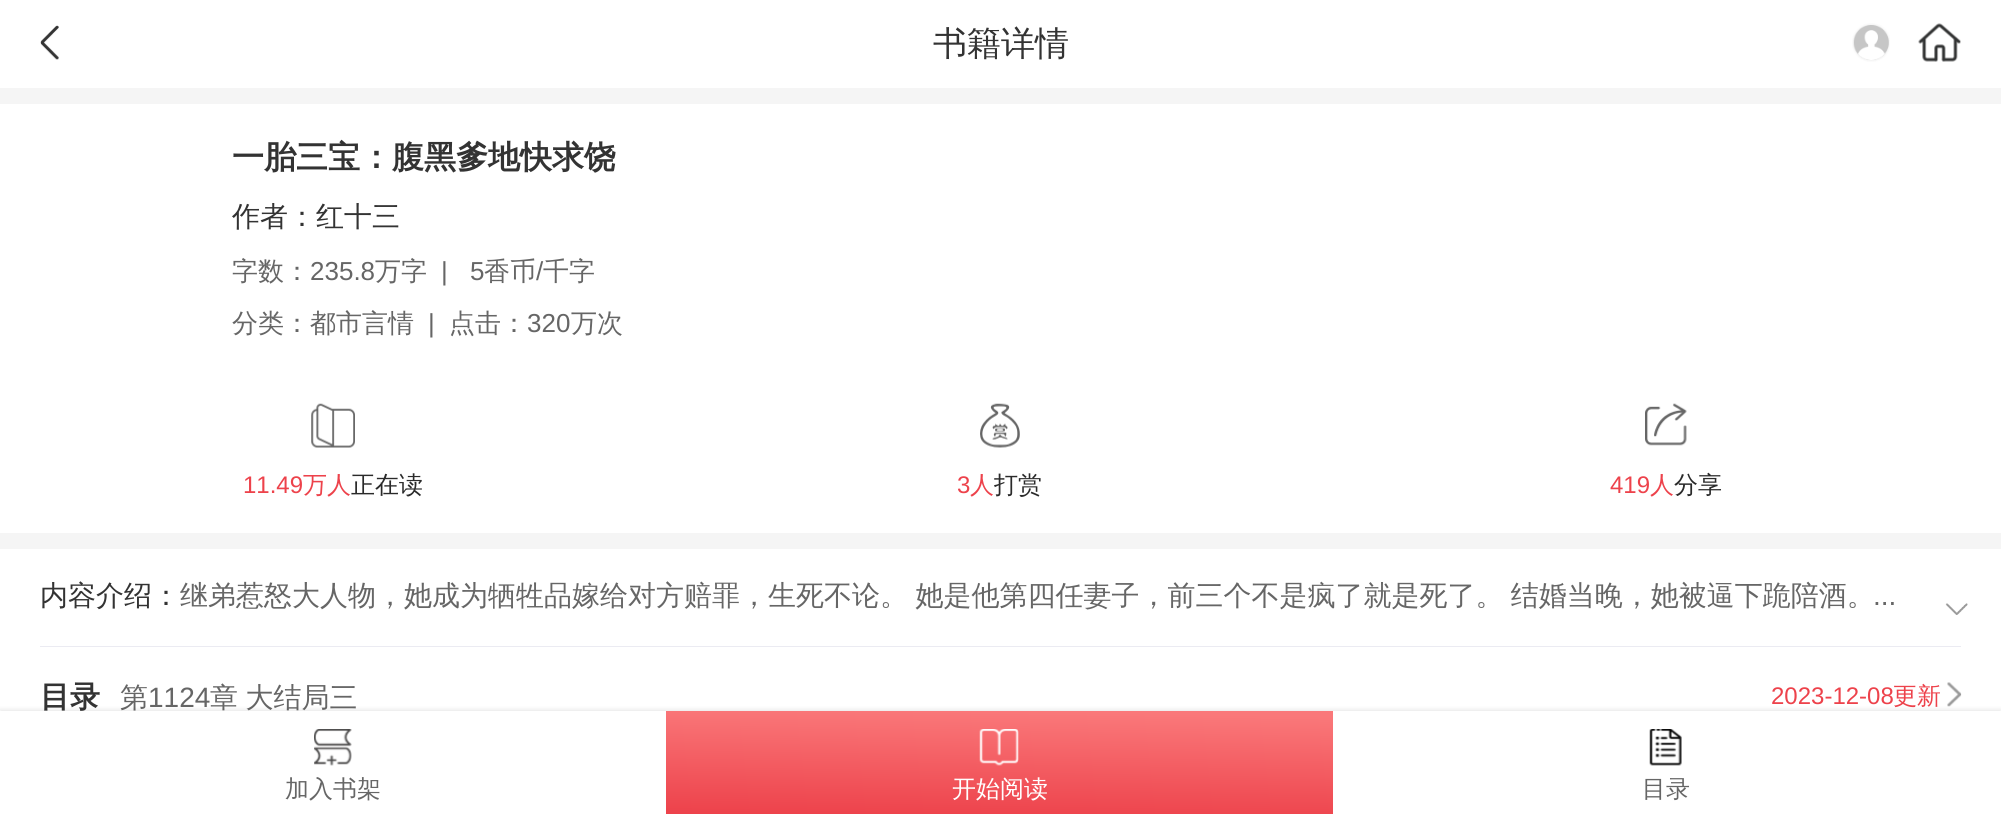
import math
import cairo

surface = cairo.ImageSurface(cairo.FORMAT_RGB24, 2001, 814)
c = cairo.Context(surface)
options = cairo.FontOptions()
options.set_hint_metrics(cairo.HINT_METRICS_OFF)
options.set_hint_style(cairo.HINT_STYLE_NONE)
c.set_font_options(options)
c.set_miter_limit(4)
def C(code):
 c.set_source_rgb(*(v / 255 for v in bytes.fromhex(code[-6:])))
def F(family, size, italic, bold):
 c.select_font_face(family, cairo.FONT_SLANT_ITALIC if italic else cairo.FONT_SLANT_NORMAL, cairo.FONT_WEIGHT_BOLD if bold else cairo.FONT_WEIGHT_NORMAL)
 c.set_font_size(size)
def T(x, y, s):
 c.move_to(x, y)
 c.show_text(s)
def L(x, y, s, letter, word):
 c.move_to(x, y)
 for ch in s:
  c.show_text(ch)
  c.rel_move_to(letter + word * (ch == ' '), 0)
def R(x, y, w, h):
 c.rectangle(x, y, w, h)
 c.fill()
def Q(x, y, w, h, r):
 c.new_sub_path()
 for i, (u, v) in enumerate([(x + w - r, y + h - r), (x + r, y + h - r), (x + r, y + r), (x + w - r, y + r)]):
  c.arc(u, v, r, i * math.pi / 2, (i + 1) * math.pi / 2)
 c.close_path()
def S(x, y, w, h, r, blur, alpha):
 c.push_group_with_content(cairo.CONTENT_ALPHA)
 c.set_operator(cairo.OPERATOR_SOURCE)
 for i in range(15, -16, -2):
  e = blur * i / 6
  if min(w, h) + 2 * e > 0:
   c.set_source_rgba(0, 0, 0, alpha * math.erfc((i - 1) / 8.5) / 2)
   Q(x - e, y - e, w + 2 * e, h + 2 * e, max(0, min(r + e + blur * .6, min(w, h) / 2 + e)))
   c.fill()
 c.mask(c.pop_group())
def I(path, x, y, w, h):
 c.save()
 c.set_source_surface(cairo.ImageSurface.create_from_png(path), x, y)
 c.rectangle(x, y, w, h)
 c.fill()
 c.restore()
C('f5f5f5')
c.paint()
C('ffffff')
R(0,0,2001,88)
I('1.png',40,25,19,35)
F('WenQuanYi Zen Hei Medium',34,0,0)
C('333333')
T(933,55,'书籍详情')
I('2.png',1852,23,38,39)
I('3.png',1918,23,43,39)
C('ffffff')
R(0,104,2001,429)
F('WenQuanYi Zen Hei',32,0,1)
C('333333')
T(232,168,'一胎三宝：腹黑爹地快求饶')
F('WenQuanYi Zen Hei Medium',28,0,0)
T(232,226,'作者：红十三')
F('WenQuanYi Zen Hei Medium',26,0,0)
C('666666')
T(232,280,'字数：')
F('Liberation Sans',26,0,0)
T(310,280,'235.8')
F('WenQuanYi Zen Hei Medium',26,0,0)
T(375,280,'万字')
F('Liberation Sans',26,0,0)
T(441,280,'|')
T(470,280,'5')
F('WenQuanYi Zen Hei Medium',26,0,0)
T(484,280,'香币')
F('Liberation Sans',26,0,0)
T(536,280,'/')
F('WenQuanYi Zen Hei Medium',26,0,0)
T(543,280,'千字')
T(232,332,'分类：都市言情')
F('Liberation Sans',26,0,0)
T(428,332,'|')
F('WenQuanYi Zen Hei Medium',26,0,0)
T(449,332,'点击：')
F('Liberation Sans',26,0,0)
T(527,332,'320')
F('WenQuanYi Zen Hei Medium',26,0,0)
T(571,332,'万次')
I('4.png',311,403,44,45)
F('Liberation Sans',24,0,0)
C('ed424b')
T(243,493,'11.49')
F('WenQuanYi Zen Hei Medium',24,0,0)
T(303,493,'万人')
C('2a2a2a')
T(351,493,'正在读')
I('5.png',980,403,40,45)
F('Liberation Sans',24,0,0)
C('ed424b')
T(957,493,'3')
F('WenQuanYi Zen Hei Medium',24,0,0)
T(970,493,'人')
C('2a2a2a')
T(994,493,'打赏')
I('6.png',1645,403,42,43)
F('Liberation Sans',24,0,0)
C('ed424b')
T(1610,493,'419')
F('WenQuanYi Zen Hei Medium',24,0,0)
T(1650,493,'人')
C('2a2a2a')
T(1674,493,'分享')
C('ffffff')
R(0,549,2001,162)
F('WenQuanYi Zen Hei Medium',28,0,0)
C('333333')
T(40,605,'内容介绍：')
C('666666')
L(180,605,'继弟惹怒大人物，她成为牺牲品嫁给对方赔罪，生死不论。 她是他第四任妻子，前三个不是疯了就是死了。 结婚当晚，她被逼下跪陪酒。',0,-1)
F('Liberation Sans',28,0,0)
T(1873,605,'...')
I('7.png',1945,603,23,12)
C('ebebf2')
R(40,646,1921,1)
F('WenQuanYi Zen Hei',30,0,1)
C('333333')
T(40,707,'目录')
F('WenQuanYi Zen Hei Medium',28,0,0)
C('666666')
T(120,707,'第')
F('Liberation Sans',28,0,0)
T(148,707,'1124')
F('WenQuanYi Zen Hei Medium',28,0,0)
L(210,707,'章 大结局三',0,-1)
F('Liberation Sans',24,0,0)
C('ed424b')
T(1771,704,'2023-12-08')
F('WenQuanYi Zen Hei Medium',24,0,0)
T(1893,704,'更新')
I('8.png',1947,682,15,25)
C('000000')
S(0,709,2001,104,0,2,.08)
C('ffffff')
R(0,711,2001,103)
I('9.png',314,729,38,37)
C('666666')
T(285,797,'加入书架')
gradient = cairo.LinearGradient(1000,705,998,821)
gradient.add_color_stop_rgba(.05,0.98,0.471,0.478,1)
gradient.add_color_stop_rgba(.98,0.929,0.259,0.294,1)
c.set_source(gradient)
R(666,711,667,103)
I('10.png',979,729,40,37)
C('ffffff')
T(952,797,'开始阅读')
I('11.png',1649,729,33,37)
C('666666')
T(1642,797,'目录')
surface.write_to_png('o.png')
